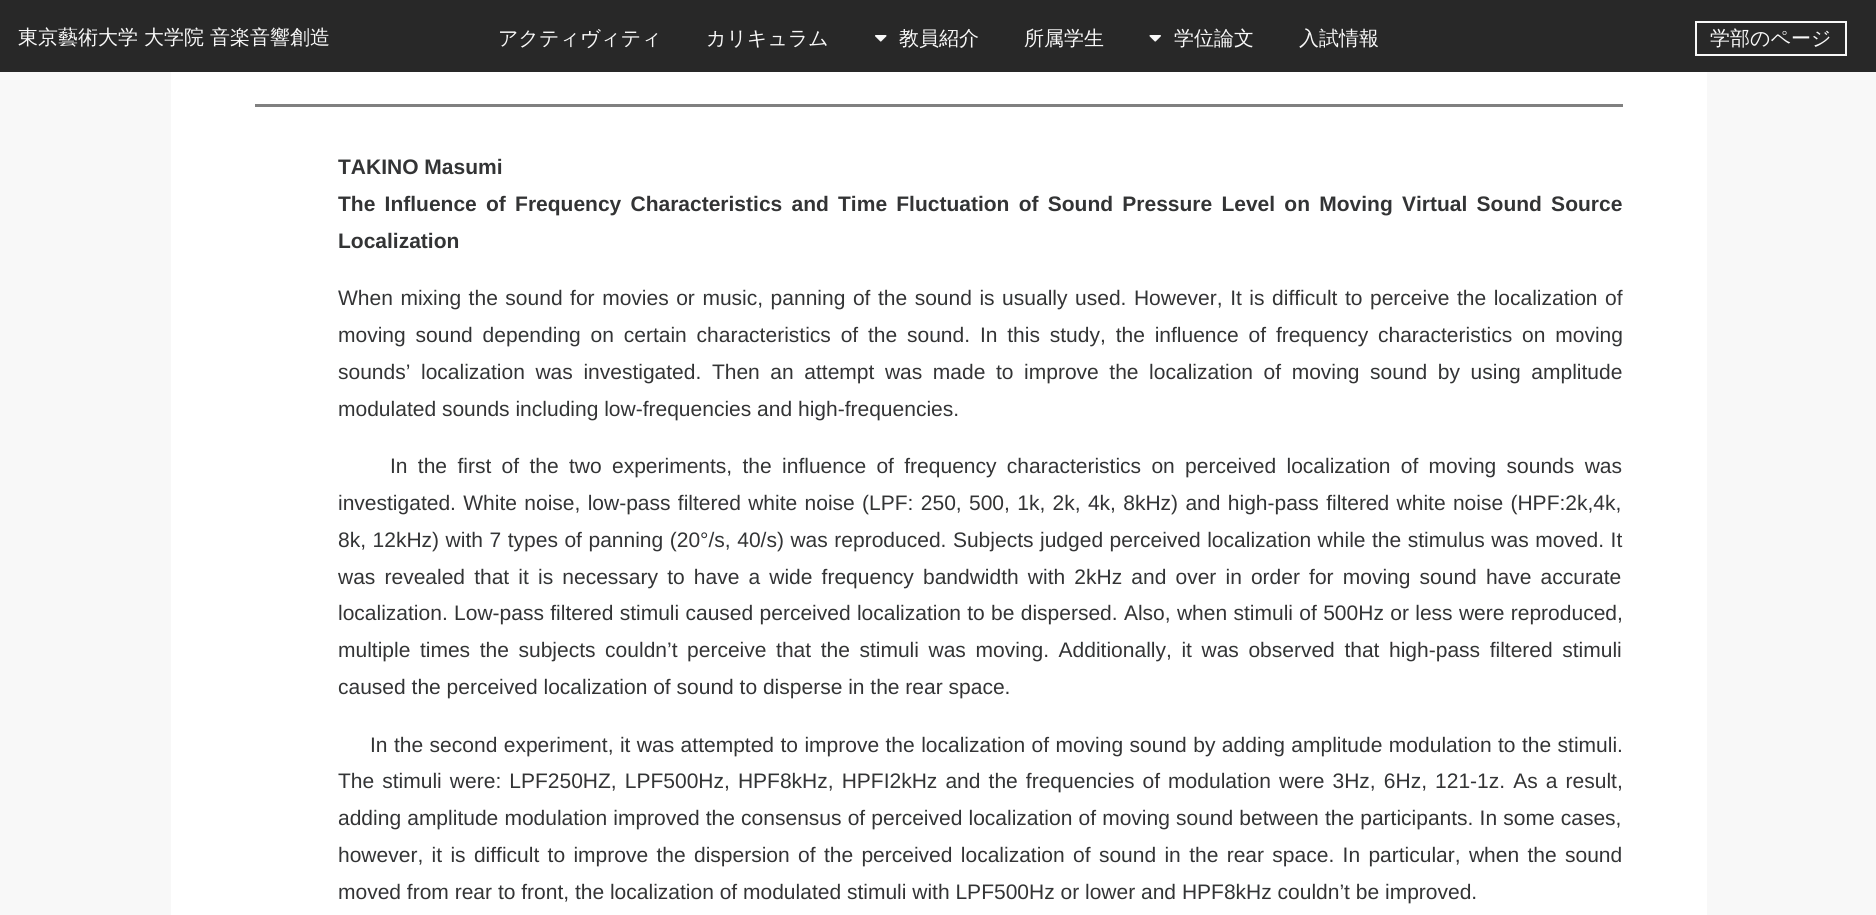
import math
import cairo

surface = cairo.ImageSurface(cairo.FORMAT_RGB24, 1876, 915)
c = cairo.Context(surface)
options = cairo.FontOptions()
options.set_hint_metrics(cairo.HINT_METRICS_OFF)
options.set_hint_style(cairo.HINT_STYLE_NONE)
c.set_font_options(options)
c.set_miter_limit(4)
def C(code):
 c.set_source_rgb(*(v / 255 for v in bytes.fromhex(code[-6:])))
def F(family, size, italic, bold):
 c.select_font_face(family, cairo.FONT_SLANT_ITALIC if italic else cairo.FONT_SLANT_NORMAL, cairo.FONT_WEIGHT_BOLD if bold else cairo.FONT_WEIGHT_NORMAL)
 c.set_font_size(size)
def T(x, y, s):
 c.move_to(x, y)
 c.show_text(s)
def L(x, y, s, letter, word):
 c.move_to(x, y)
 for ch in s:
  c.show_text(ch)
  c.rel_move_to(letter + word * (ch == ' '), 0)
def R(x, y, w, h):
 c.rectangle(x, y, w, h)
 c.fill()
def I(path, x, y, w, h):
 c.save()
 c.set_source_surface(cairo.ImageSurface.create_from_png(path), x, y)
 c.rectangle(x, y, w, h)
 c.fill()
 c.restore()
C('f8f8f8')
c.paint()
C('282828')
R(0,0,1876,72)
F('WenQuanYi Zen Hei Medium',20,0,0)
C('f8f8f8')
T(18,44,'東京藝術大学 大学院 音楽音響創造')
T(498,45,'アクティヴィティ')
T(706,45,'カリキュラム')
I('1.png',875,35,12,7)
T(899,45,'教員紹介')
T(1024,45,'所属学生')
I('2.png',1149,35,12,7)
T(1174,45,'学位論文')
T(1299,45,'入試情報')
c.rectangle(1696,22,150,33)
c.stroke()
T(1710,45,'学部のページ')
C('ffffff')
R(171,72,1536,843)
C('808080')
R(255,104,1368,3)
F('Liberation Sans',21,0,1)
C('333435')
T(338,174,'TAKINO Masumi')
L(338,211,'The Influence of Frequency Characteristics and Time Fluctuation of Sound Pressure Level on Moving Virtual Sound Source',0,3.4)
T(338,248,'Localization')
F('Liberation Sans',21,0,0)
L(338,305,'When mixing the sound for movies or music, panning of the sound is usually used. However, It is difficult to perceive the localization of',0,1.7)
L(338,342,'moving sound depending on certain characteristics of the sound. In this study, the influence of frequency characteristics on moving',0,4)
L(338,379,'sounds’ localization was investigated. Then an attempt was made to improve the localization of moving sound by using amplitude',0,4.75)
T(338,416,'modulated sounds including low-frequencies and high-frequencies.')
L(390,473,'In the first of the two experiments, the influence of frequency characteristics on perceived localization of moving sounds was',0,4.5)
L(338,510,'investigated. White noise, low-pass filtered white noise (LPF: 250, 500, 1k, 2k, 4k, 8kHz) and high-pass filtered white noise (HPF:2k,4k,',0,1.5)
L(338,547,'8k, 12kHz) with 7 types of panning (20°/s, 40/s) was reproduced. Subjects judged perceived localization while the stimulus was moved. It',0,.7)
L(338,584,'was revealed that it is necessary to have a wide frequency bandwidth with 2kHz and over in order for moving sound have accurate',0,3.3)
L(338,620,'localization. Low-pass filtered stimuli caused perceived localization to be dispersed. Also, when stimuli of 500Hz or less were reproduced,',0,.5)
L(338,657,'multiple times the subjects couldn’t perceive that the stimuli was moving. Additionally, it was observed that high-pass filtered stimuli',0,3.75)
T(338,694,'caused the perceived localization of sound to disperse in the rear space.')
L(370,752,'In the second experiment, it was attempted to improve the localization of moving sound by adding amplitude modulation to the stimuli.',0,.6)
L(338,788,'The stimuli were: LPF250HZ, LPF500Hz, HPF8kHz, HPFI2kHz and the frequencies of modulation were 3Hz, 6Hz, 121-1z. As a result,',0,2.25)
L(338,825,'adding amplitude modulation improved the consensus of perceived localization of moving sound between the participants. In some cases,',0,.3)
L(338,862,'however, it is difficult to improve the dispersion of the perceived localization of sound in the rear space. In particular, when the sound',0,2.5)
T(338,899,'moved from rear to front, the localization of modulated stimuli with LPF500Hz or lower and HPF8kHz couldn’t be improved.')
surface.write_to_png('o.png')
